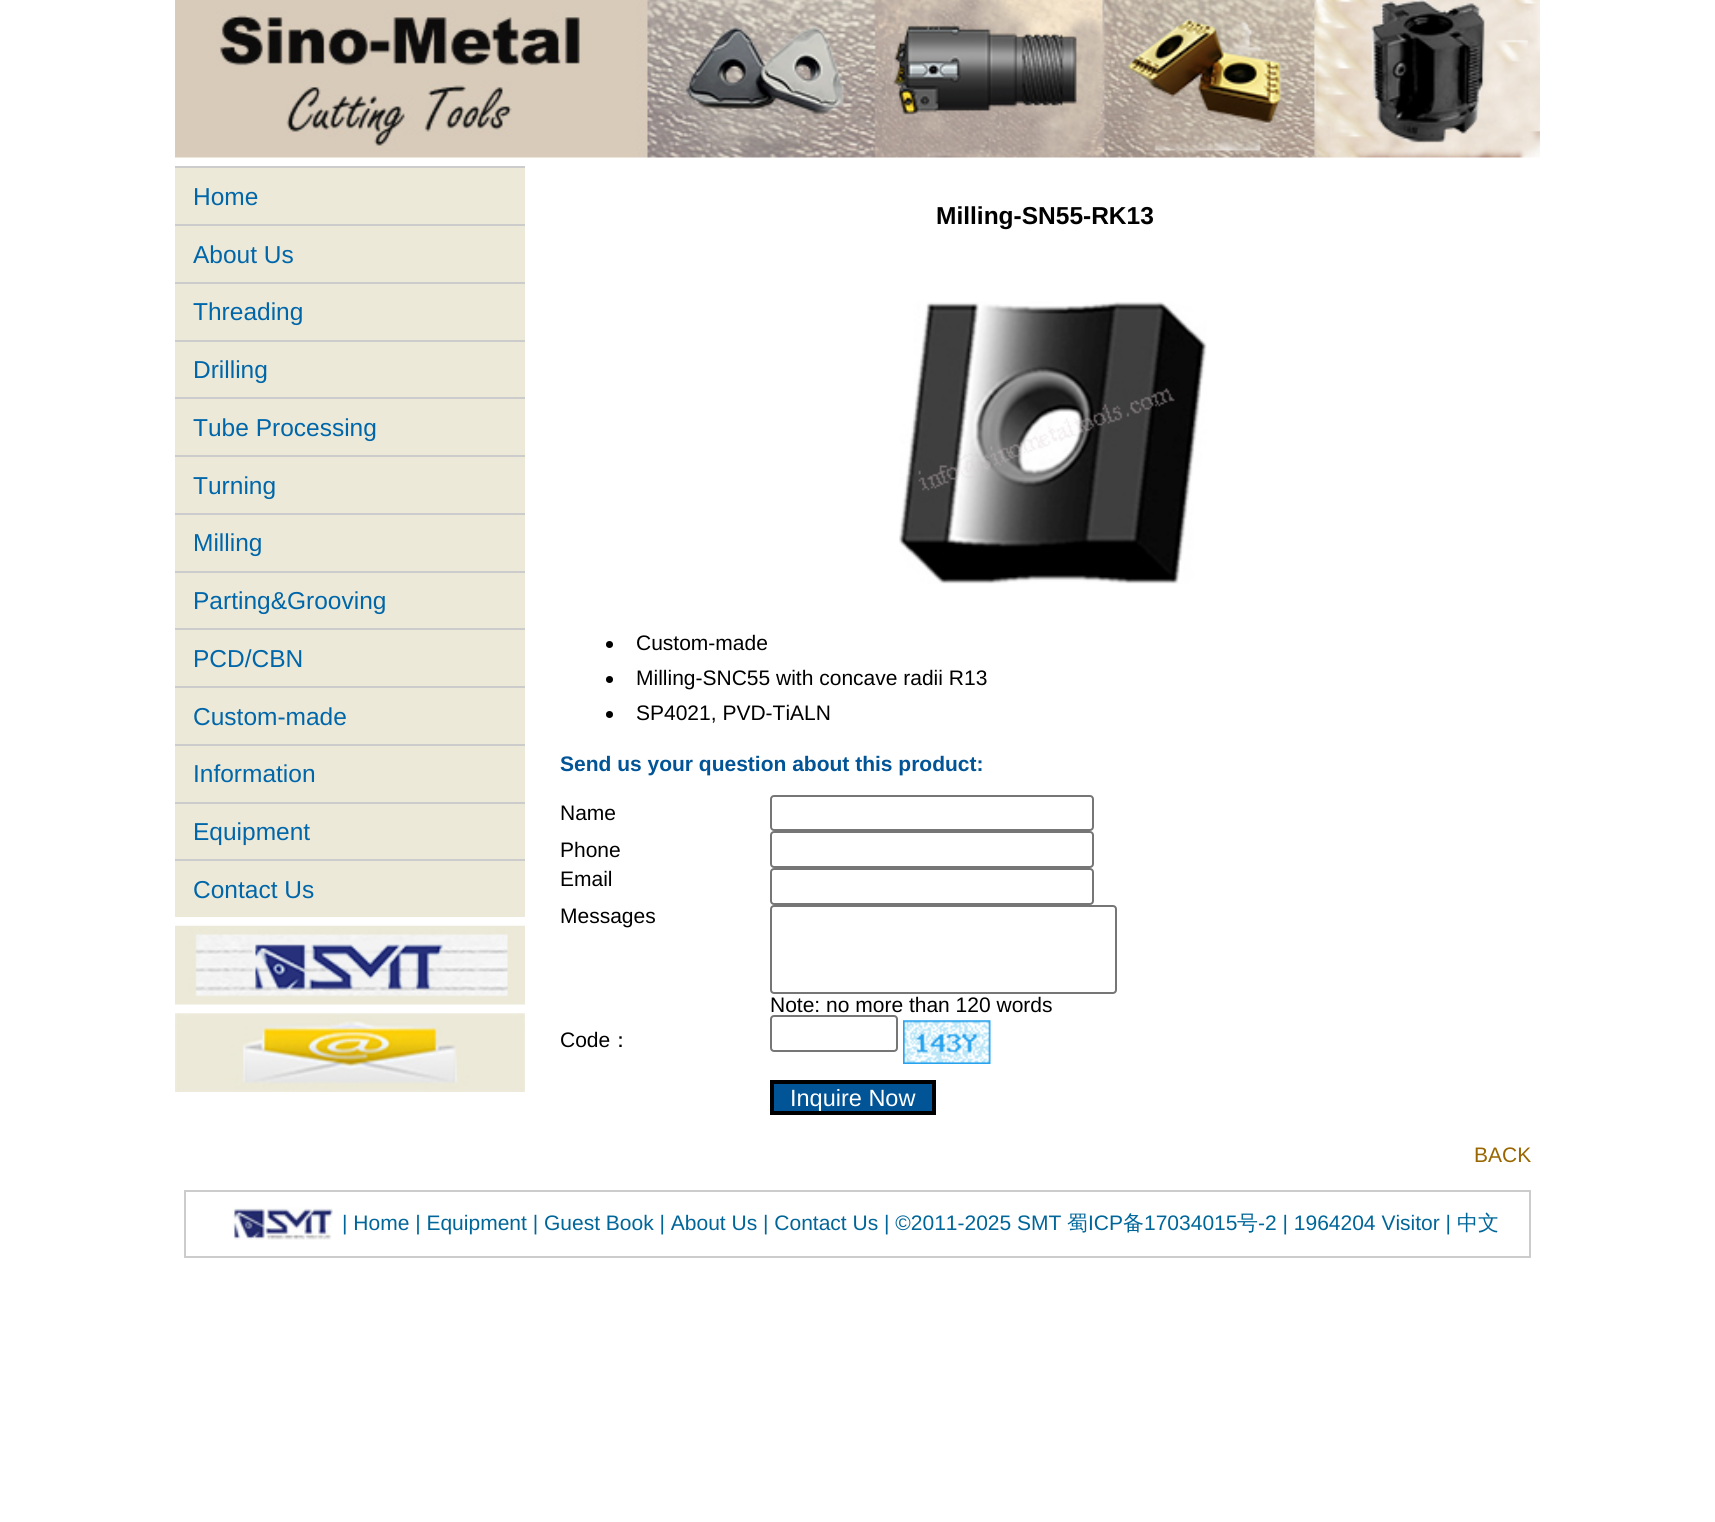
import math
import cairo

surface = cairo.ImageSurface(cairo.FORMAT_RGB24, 1715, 1522)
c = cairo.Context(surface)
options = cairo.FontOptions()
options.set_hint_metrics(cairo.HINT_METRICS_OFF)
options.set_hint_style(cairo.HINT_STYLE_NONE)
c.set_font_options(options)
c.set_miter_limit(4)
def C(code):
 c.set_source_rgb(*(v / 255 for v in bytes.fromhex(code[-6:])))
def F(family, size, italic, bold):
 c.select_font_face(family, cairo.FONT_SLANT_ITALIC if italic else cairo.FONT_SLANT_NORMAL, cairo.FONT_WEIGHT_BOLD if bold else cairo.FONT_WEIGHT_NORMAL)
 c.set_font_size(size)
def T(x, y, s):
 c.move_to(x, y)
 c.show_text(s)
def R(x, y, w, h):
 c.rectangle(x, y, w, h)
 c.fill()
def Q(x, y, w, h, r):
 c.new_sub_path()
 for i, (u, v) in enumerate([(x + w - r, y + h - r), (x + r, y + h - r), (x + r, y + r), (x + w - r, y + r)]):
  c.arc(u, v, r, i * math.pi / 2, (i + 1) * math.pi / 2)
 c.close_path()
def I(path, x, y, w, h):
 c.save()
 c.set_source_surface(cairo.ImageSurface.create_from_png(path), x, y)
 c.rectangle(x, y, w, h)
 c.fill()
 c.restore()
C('ffffff')
c.paint()
I('1.png',175,0,1365,158)
C('ece9d8')
R(175,168,350,749)
C('cccccc')
R(175,166,350,2)
F('Liberation Sans',24.5,0,0)
C('0066aa')
T(193,205,'Home')
C('cccccc')
R(175,224,350,2)
C('0066aa')
T(193,263,'About Us')
C('cccccc')
R(175,282,350,2)
C('0066aa')
T(193,320,'Threading')
C('cccccc')
R(175,340,350,2)
C('0066aa')
T(193,378,'Drilling')
C('cccccc')
R(175,397,350,2)
C('0066aa')
T(193,436,'Tube Processing')
C('cccccc')
R(175,455,350,2)
C('0066aa')
T(193,494,'Turning')
C('cccccc')
R(175,513,350,2)
C('0066aa')
T(193,551,'Milling')
C('cccccc')
R(175,571,350,2)
C('0066aa')
T(193,609,'Parting&Grooving')
C('cccccc')
R(175,628,350,2)
C('0066aa')
T(193,667,'PCD/CBN')
C('cccccc')
R(175,686,350,2)
C('0066aa')
T(193,725,'Custom-made')
C('cccccc')
R(175,744,350,2)
C('0066aa')
T(193,782,'Information')
C('cccccc')
R(175,802,350,2)
C('0066aa')
T(193,840,'Equipment')
C('cccccc')
R(175,859,350,2)
C('0066aa')
T(193,898,'Contact Us')
I('2.png',175,925,350,80)
I('3.png',175,1013,350,79)
F('Liberation Sans',24.5,0,1)
C('000000')
T(936,224,'Milling-SN55-RK13')
I('4.png',899,301,308,283)
c.arc(609.5,644.5,3.5,0,2 * math.pi)
c.fill()
F('Liberation Sans',21,0,0)
T(636,650,'Custom-made')
c.new_path()
c.arc(609.5,679.5,3.5,0,2 * math.pi)
c.fill()
T(636,685,'Milling-SNC55 with concave radii R13')
c.new_path()
c.arc(609.5,714.5,3.5,0,2 * math.pi)
c.fill()
T(636,720,'SP4021, PVD-TiALN')
F('Liberation Sans',21,0,1)
C('015496')
T(560,771,'Send us your question about this product:')
F('Liberation Sans',21,0,0)
C('000000')
T(560,820,'Name')
Q(771,796,322,34,3)
C('767676')
c.stroke()
C('000000')
T(560,857,'Phone')
Q(771,832,322,35,3)
C('767676')
c.stroke()
C('000000')
T(560,886,'Email')
Q(771,869,322,35,3)
C('767676')
c.stroke()
C('000000')
T(560,923,'Messages')
Q(771,906,345,87,3)
C('767676')
c.stroke()
C('000000')
T(770,1012,'Note: no more than 120 words')
T(560,1047,'Code')
F('WenQuanYi Zen Hei Medium',21,0,0)
T(610,1047,'：')
Q(771,1016,126,35,3)
C('767676')
c.stroke()
I('5.png',903,1020,88,44)
C('015496')
c.rectangle(772,1082,162,31)
c.fill_preserve()
C('000000')
c.set_line_width(4)
c.stroke()
F('Liberation Sans',23.5,0,0)
C('ffffff')
T(790,1106,'Inquire Now')
F('Liberation Sans',21,0,0)
C('996600')
T(1474,1162,'BACK')
c.rectangle(185,1191,1345,66)
C('cccccc')
c.set_line_width(2)
c.stroke()
I('6.png',232,1207,102,33)
C('006699')
T(342,1230,'| Home | Equipment | Guest Book | About Us | Contact Us | ©2011-2025 SMT')
F('WenQuanYi Zen Hei Medium',21,0,0)
T(1067,1230,'蜀')
F('Liberation Sans',21,0,0)
T(1088,1230,'ICP')
F('WenQuanYi Zen Hei Medium',21,0,0)
T(1123,1230,'备')
F('Liberation Sans',21,0,0)
T(1144,1230,'17034015')
F('WenQuanYi Zen Hei Medium',21,0,0)
T(1237,1230,'号')
F('Liberation Sans',21,0,0)
T(1258,1230,'-2 | 1964204 Visitor |')
F('WenQuanYi Zen Hei Medium',21,0,0)
T(1457,1230,'中文')
surface.write_to_png('o.png')
